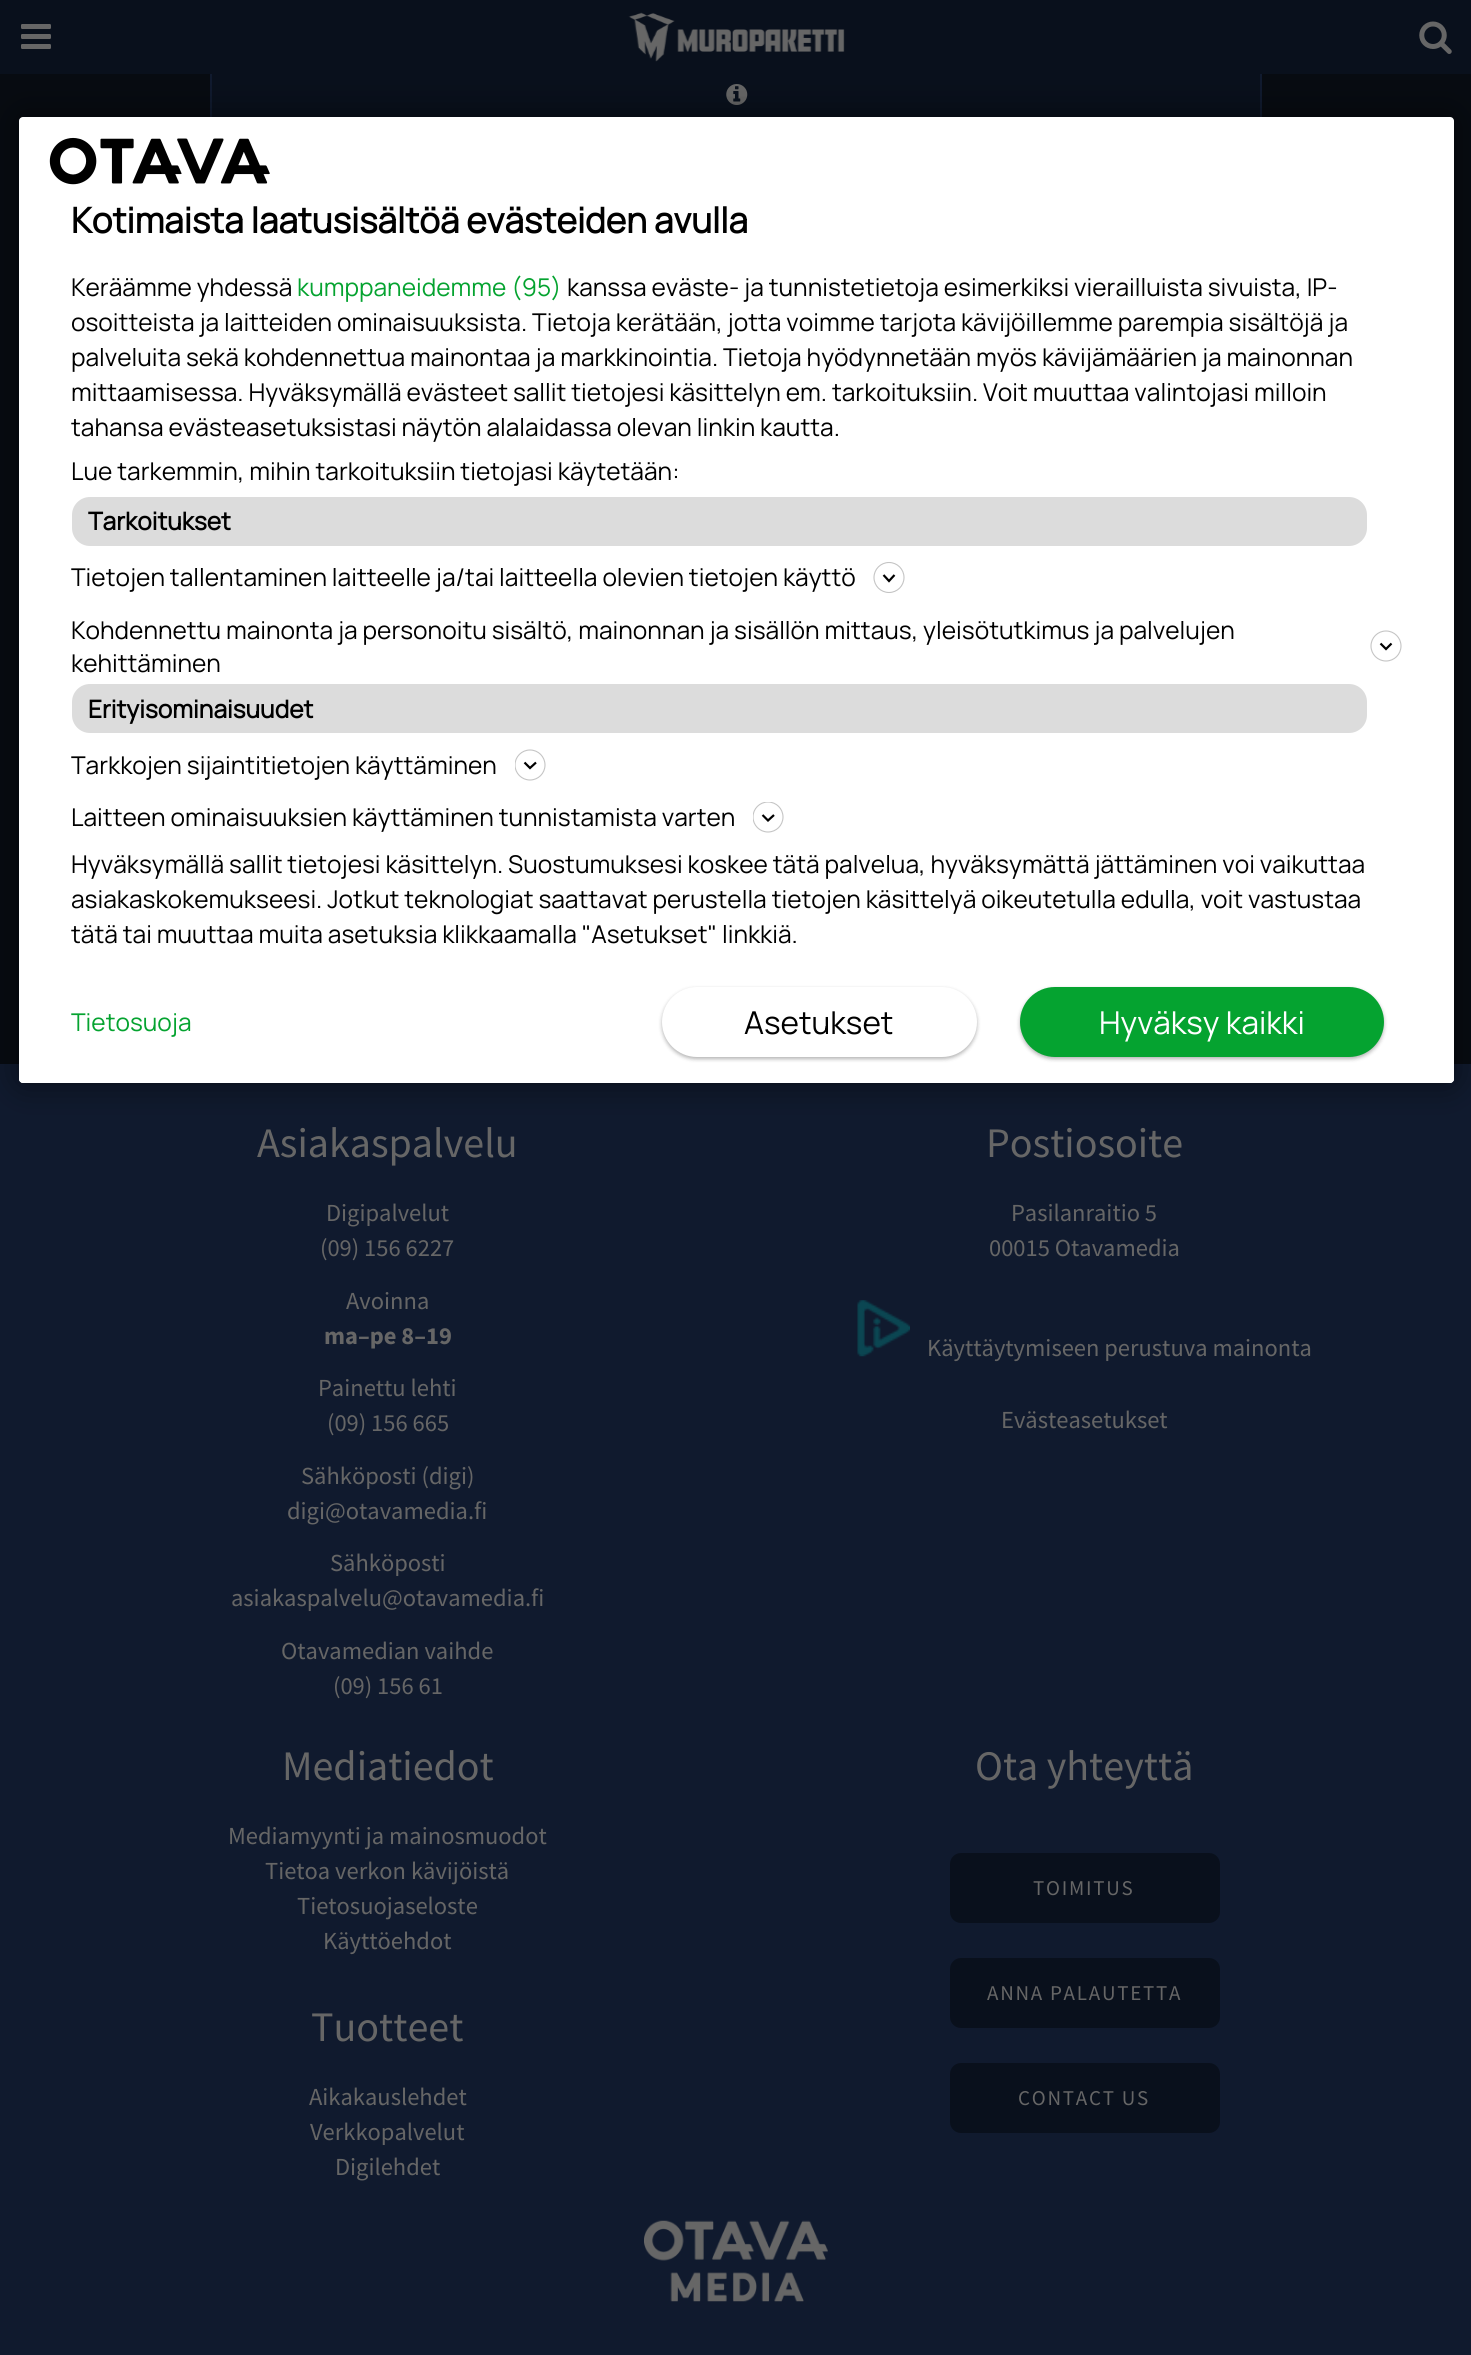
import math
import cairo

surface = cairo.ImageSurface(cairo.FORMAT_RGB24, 1471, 2355)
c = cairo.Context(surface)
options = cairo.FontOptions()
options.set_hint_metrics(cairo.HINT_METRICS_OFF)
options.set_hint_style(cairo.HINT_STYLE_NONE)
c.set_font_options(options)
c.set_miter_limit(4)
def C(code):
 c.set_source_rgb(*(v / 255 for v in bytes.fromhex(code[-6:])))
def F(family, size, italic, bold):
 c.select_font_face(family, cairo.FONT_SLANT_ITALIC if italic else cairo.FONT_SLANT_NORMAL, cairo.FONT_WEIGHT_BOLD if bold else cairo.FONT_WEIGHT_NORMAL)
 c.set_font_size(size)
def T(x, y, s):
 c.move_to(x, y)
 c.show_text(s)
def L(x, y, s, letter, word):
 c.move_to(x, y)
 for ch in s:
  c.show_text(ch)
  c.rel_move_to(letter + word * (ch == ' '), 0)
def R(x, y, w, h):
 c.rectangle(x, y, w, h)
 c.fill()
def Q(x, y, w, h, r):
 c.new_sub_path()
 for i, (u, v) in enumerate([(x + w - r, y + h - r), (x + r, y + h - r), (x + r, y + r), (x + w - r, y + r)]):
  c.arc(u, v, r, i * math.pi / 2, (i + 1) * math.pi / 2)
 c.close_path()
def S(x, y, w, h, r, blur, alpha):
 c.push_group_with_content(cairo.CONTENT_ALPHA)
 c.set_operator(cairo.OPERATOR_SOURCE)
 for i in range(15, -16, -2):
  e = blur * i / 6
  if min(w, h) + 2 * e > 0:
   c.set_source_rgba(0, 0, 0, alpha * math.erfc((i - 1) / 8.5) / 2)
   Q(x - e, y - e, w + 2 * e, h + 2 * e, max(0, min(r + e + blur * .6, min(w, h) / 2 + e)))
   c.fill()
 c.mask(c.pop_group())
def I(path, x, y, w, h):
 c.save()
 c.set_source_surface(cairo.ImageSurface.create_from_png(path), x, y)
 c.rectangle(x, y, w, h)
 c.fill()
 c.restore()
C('070b11')
c.paint()
C('09101c')
R(212,74,1048,43)
c.rectangle(211,50,1050,271)
C('101a2e')
c.stroke()
C('09101c')
R(0,0,1471,74)
I('5.png',726,84,22,21)
C('101a2e')
R(0,1064,1471,1291)
C('000000')
S(19,117,1435,966,4,17.5,.5)
C('ffffff')
Q(19,117,1435,966,4)
c.fill()
I('1.png',49,137,221,48)
F('Manrope',35,0,1)
C('000000')
T(71,233,'Kotimaista laatusisältöä evästeiden avulla')
F('Manrope ExtraLight',24.5,0,0)
T(71,296,'Keräämme yhdessä')
C('05a330')
T(297,296,'kumppaneidemme (95)')
C('000000')
T(567,296,'kanssa eväste- ja tunnistetietoja esimerkiksi vierailluista sivuista, IP-')
T(71,331,'osoitteista ja laitteiden ominaisuuksista. Tietoja kerätään, jotta voimme tarjota kävijöillemme parempia sisältöjä ja')
T(71,366,'palveluita sekä kohdennettua mainontaa ja markkinointia. Tietoja hyödynnetään myös kävijämäärien ja mainonnan')
T(71,401,'mittaamisessa. Hyväksymällä evästeet sallit tietojesi käsittelyn em. tarkoituksiin. Voit muuttaa valintojasi milloin')
T(71,436,'tahansa evästeasetuksistasi näytön alalaidassa olevan linkin kautta.')
T(71,480,'Lue tarkemmin, mihin tarkoituksiin tietojasi käytetään:')
C('dcdcdc')
Q(72,497,1295,49,18)
c.fill()
F('Manrope',24.5,0,1)
C('000000')
T(88,530,'Tarkoitukset')
F('Manrope ExtraLight',24.5,0,0)
T(71,586,'Tietojen tallentaminen laitteelle ja/tai laitteella olevien tietojen käyttö')
c.new_path()
c.move_to(883.5,575)
c.line_to(889,581)
c.line_to(894.5,575)
c.set_line_width(2.2)
c.stroke()
c.arc(889,577.5,15,0,2 * math.pi)
C('c4c4c4')
c.set_line_width(1.1)
c.stroke()
C('000000')
T(71,639,'Kohdennettu mainonta ja personoitu sisältö, mainonnan ja sisällön mittaus, yleisötutkimus ja palvelujen')
c.new_path()
c.move_to(1380.5,643.5)
c.line_to(1386,649)
c.line_to(1391.5,643.5)
c.set_line_width(2.2)
c.stroke()
c.arc(1386,646,15,0,2 * math.pi)
C('c4c4c4')
c.set_line_width(1.1)
c.stroke()
C('000000')
T(71,672,'kehittäminen')
C('dcdcdc')
Q(72,684,1295,49,18)
c.fill()
F('Manrope',24.5,0,1)
C('000000')
T(88,718,'Erityisominaisuudet')
F('Manrope ExtraLight',24.5,0,0)
T(71,774,'Tarkkojen sijaintitietojen käyttäminen')
c.new_path()
c.move_to(524.5,762.5)
c.line_to(530,768)
c.line_to(536,762.5)
c.set_line_width(2.2)
c.stroke()
c.save()
c.rectangle(515,749,31,32)
c.clip()
c.arc(530,765,15,0,2 * math.pi)
C('c4c4c4')
c.set_line_width(1.1)
c.stroke()
c.restore()
T(71,826,'Laitteen ominaisuuksien käyttäminen tunnistamista varten')
c.new_path()
c.move_to(762.5,815)
c.line_to(768,820.5)
c.line_to(774,815)
c.stroke()
c.save()
c.rectangle(753,802,31,31)
c.clip()
c.arc(768,817,15,0,2 * math.pi)
C('c4c4c4')
c.set_line_width(1.1)
c.stroke()
c.restore()
T(71,873,'Hyväksymällä sallit tietojesi käsittelyn. Suostumuksesi koskee tätä palvelua, hyväksymättä jättäminen voi vaikuttaa')
T(71,908,'asiakaskokemukseesi. Jotkut teknologiat saattavat perustella tietojen käsittelyä oikeutetulla edulla, voit vastustaa')
T(71,943,'tätä tai muuttaa muita asetuksia klikkaamalla "Asetukset" linkkiä.')
C('ffffff')
c.new_path()
c.move_to(19,961)
c.line_to(1454,961)
c.line_to(1454,1079)
c.curve_to(1454,1081,1452,1083,1450,1083)
c.line_to(23,1083)
c.curve_to(21,1083,19,1081,19,1079)
c.close_path()
c.fill()
C('05a330')
T(71,1031,'Tietosuoja')
C('000000')
S(662,989,315,70,35,2,.3)
C('ffffff')
Q(662,987,315,70,35)
c.fill()
F('Manrope ExtraLight',31.5,0,0)
C('000000')
T(744,1034,'Asetukset')
C('000000')
S(1020,989,364,70,35,2,.3)
C('05a330')
Q(1020,987,364,70,35)
c.fill()
C('ffffff')
T(1099,1034,'Hyväksy kaikki')
I('2.png',21,24,30,25)
I('3.png',628,12,217,50)
I('4.png',1419,21,33,33)
F('Source Sans Pro',42,0,0)
C('666666')
T(257,1157,'Asiakaspalvelu')
F('Source Sans Pro',24.5,0,0)
T(326,1221,'Digipalvelut')
T(320,1256,'(09) 156 6227')
T(346,1309,'Avoinna')
F('Source Sans Pro',24.5,0,1)
T(324,1344,'ma–pe 8–19')
F('Source Sans Pro',24.5,0,0)
T(318,1396,'Painettu lehti')
T(327,1431,'(09) 156 665')
T(301,1484,'Sähköposti (digi)')
T(287,1519,'digi@otavamedia.fi')
T(330,1571,'Sähköposti')
T(231,1606,'asiakaspalvelu@otavamedia.fi')
T(281,1659,'Otavamedian vaihde')
T(333,1694,'(09) 156 61')
F('Source Sans Pro',42,0,0)
T(986,1157,'Postiosoite')
F('Source Sans Pro',24.5,0,0)
T(1011,1221,'Pasilanraitio 5')
T(989,1256,'00015 Otavamedia')
I('6.png',857,1300,53,57)
T(927,1356,'Käyttäytymiseen perustuva mainonta')
T(1001,1428,'Evästeasetukset')
F('Source Sans Pro',42,0,0)
T(282,1780,'Mediatiedot')
F('Source Sans Pro',24.5,0,0)
T(228,1844,'Mediamyynti ja mainosmuodot')
T(265,1879,'Tietoa verkon kävijöistä')
T(297,1914,'Tietosuojaseloste')
T(323,1949,'Käyttöehdot')
F('Source Sans Pro',42,0,0)
T(311,2041,'Tuotteet')
F('Source Sans Pro',24.5,0,0)
T(309,2105,'Aikakauslehdet')
T(310,2140,'Verkkopalvelut')
T(335,2175,'Digilehdet')
F('Source Sans Pro',42,0,0)
T(975,1780,'Ota yhteyttä')
C('09101c')
Q(950,1853,270,70,11)
c.fill()
F('Source Sans Pro',21,0,0)
C('666666')
L(1033,1895,'TOIMITUS',1.75,0)
C('09101c')
Q(950,1958,270,70,11)
c.fill()
C('666666')
L(987,2000,'ANNA PALAUTETTA',1.75,0)
C('09101c')
Q(950,2063,270,70,11)
c.fill()
C('666666')
L(1018,2105,'CONTACT US',1.75,0)
I('7.png',644,2220,184,82)
surface.write_to_png('o.png')
